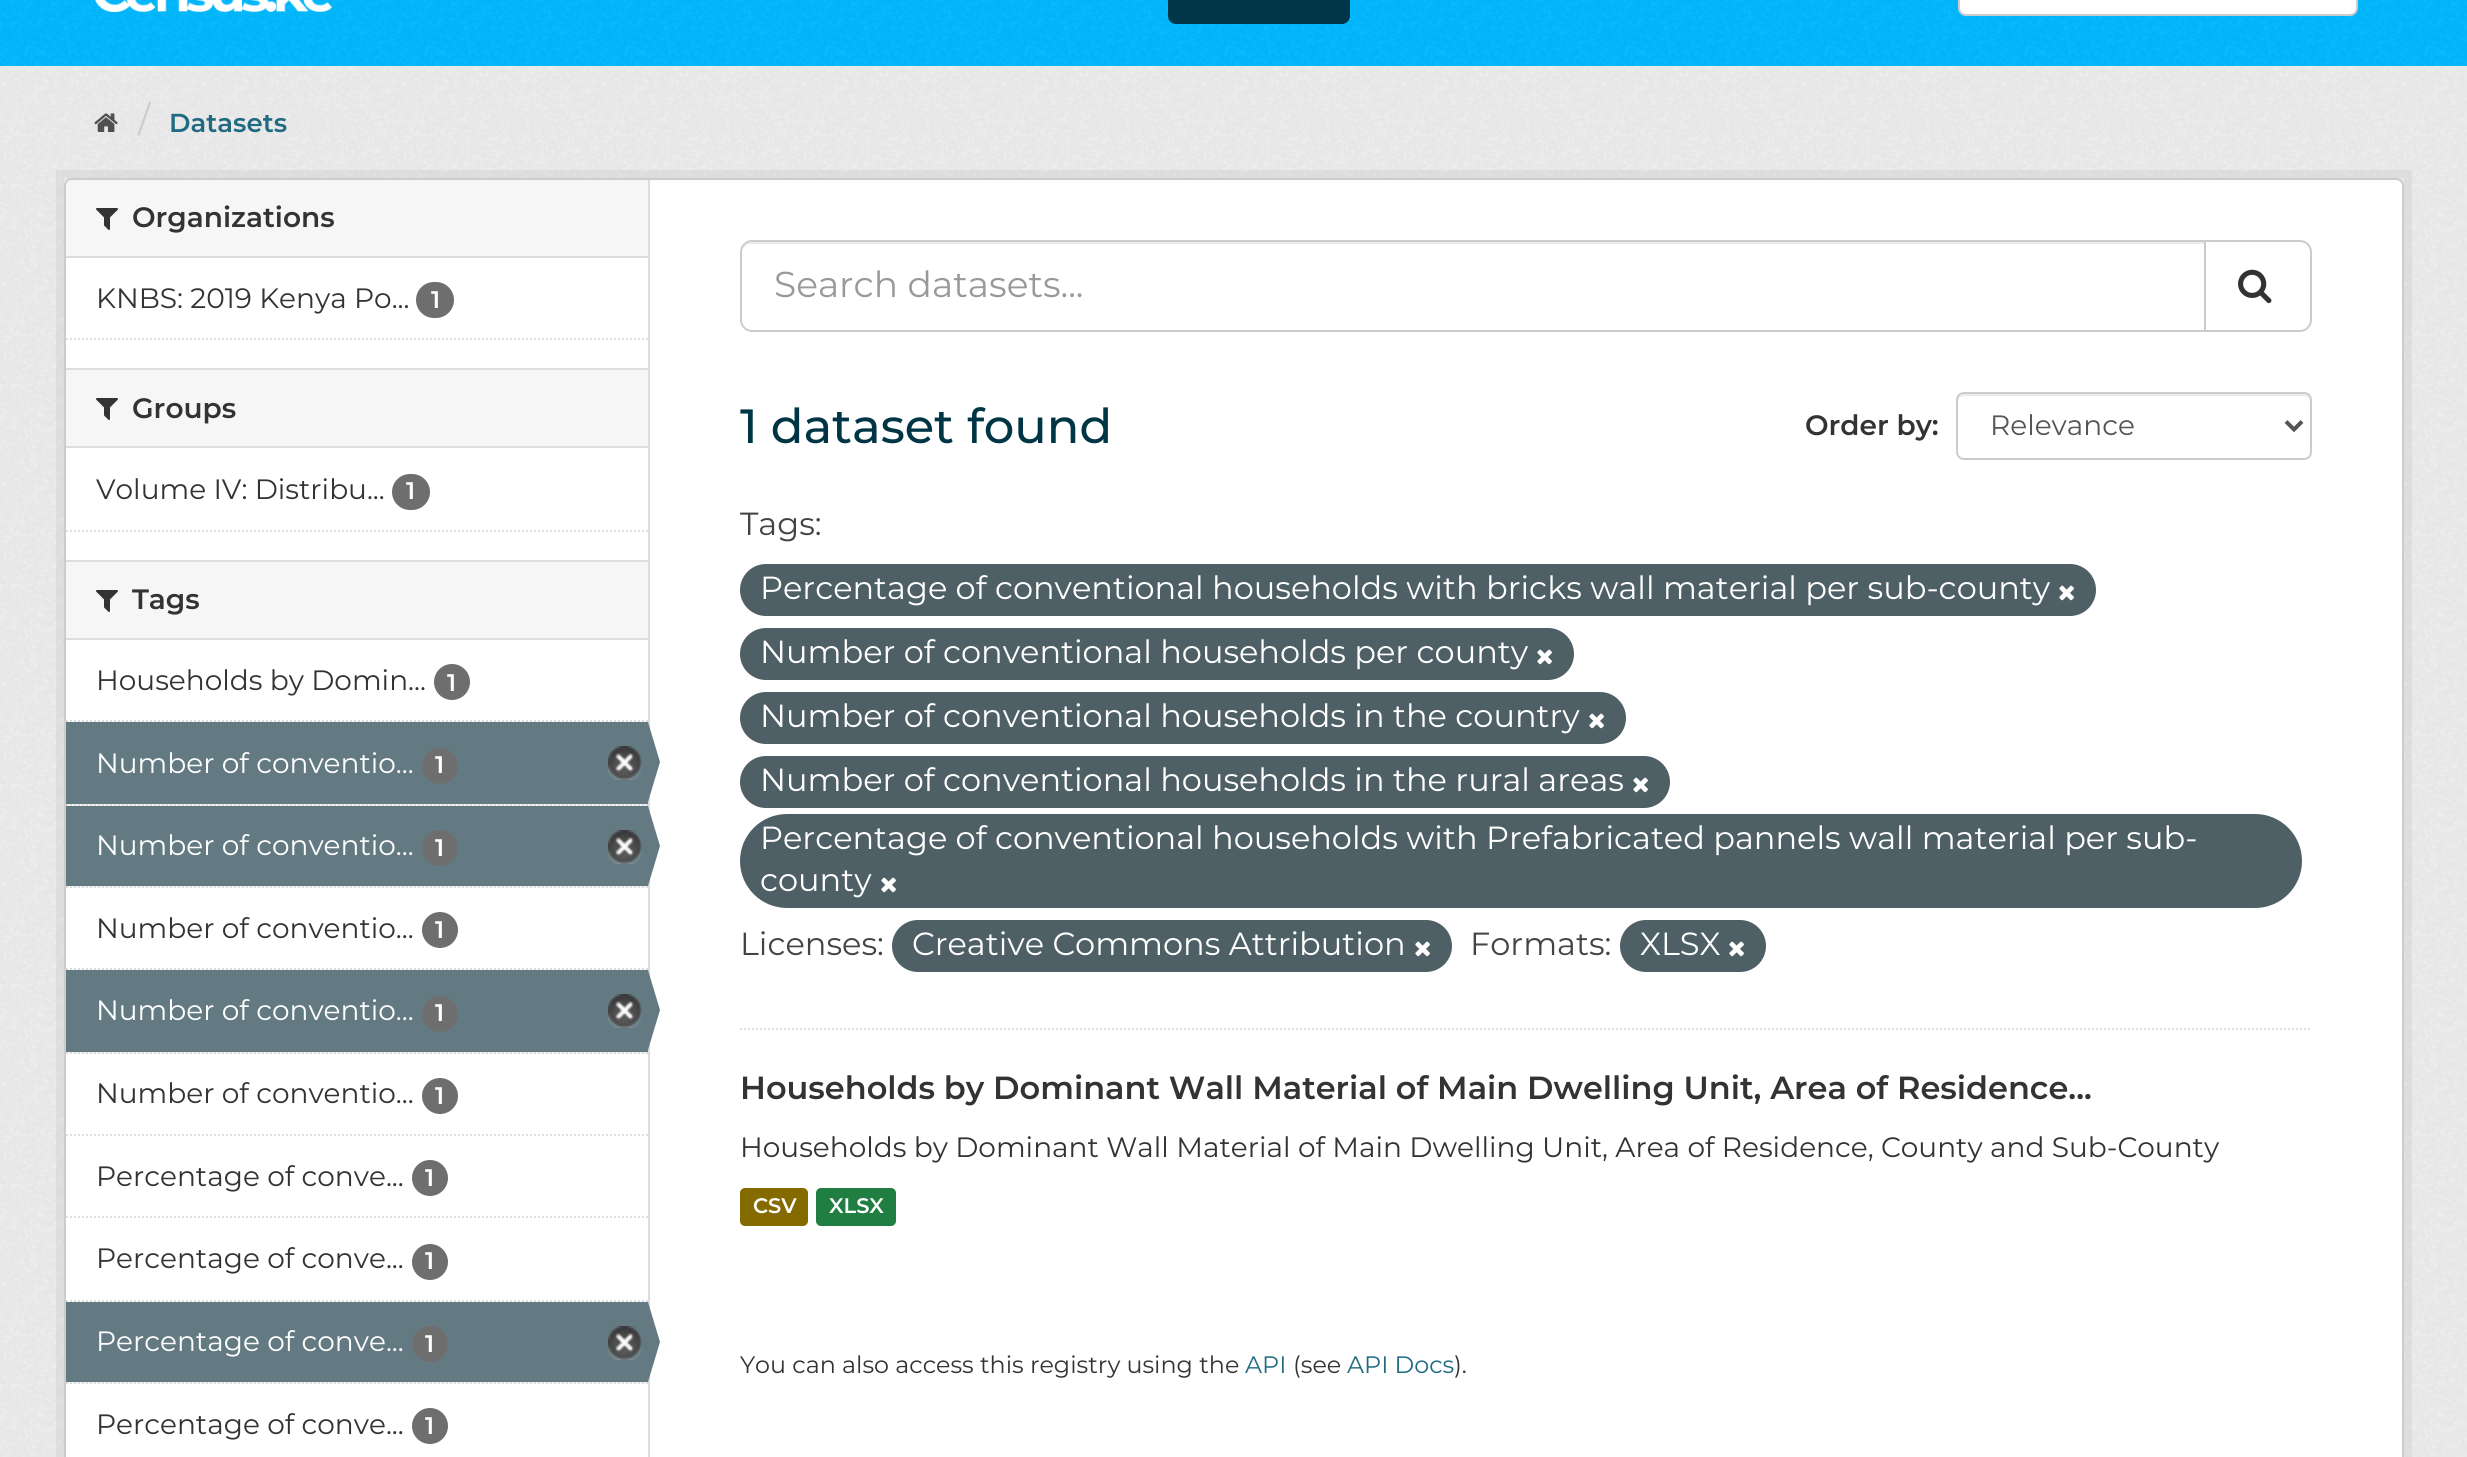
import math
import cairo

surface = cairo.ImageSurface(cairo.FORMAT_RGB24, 2467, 1457)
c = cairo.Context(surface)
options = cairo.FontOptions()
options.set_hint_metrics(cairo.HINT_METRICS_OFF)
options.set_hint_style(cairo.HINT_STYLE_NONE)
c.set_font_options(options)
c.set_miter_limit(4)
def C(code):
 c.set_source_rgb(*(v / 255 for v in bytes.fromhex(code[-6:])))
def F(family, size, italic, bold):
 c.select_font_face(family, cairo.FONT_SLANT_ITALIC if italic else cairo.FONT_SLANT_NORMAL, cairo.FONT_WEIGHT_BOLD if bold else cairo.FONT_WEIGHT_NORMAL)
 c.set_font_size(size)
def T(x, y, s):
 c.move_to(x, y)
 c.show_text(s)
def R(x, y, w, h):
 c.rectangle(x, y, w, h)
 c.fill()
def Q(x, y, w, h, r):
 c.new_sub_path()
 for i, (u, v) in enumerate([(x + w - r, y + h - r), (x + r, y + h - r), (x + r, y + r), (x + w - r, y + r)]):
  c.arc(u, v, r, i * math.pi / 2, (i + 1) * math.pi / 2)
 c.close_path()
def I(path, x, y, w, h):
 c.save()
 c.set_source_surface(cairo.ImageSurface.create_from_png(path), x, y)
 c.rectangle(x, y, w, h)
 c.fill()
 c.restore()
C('eeeeee')
c.paint()
C('00baff')
R(0,0,2467,66)
I('1.png',0,0,2467,66)
I('2.png',95,0,238,12)
C('003647')
Q(1168,-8,182,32,8)
c.fill()
C('ffffff')
Q(1959,-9,398,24,7)
c.fill_preserve()
C('cccccc')
c.stroke()
I('3.png',0,66,2467,1391)
I('4.png',94,113,24,19)
F('Montserrat',36,0,0)
T(138,132,'/')
F('Montserrat SemiBold',26,0,0)
C('206b82')
T(169,132,'Datasets')
c.rectangle(60,174,2348,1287)
c.set_source_rgba(0,0,0,0.05)
c.set_line_width(8)
c.stroke()
C('ffffff')
Q(65,179,2338,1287,7)
c.fill_preserve()
C('cccccc')
c.set_line_width(2)
c.stroke()
C('f6f6f6')
c.new_path()
c.move_to(72,180)
c.line_to(648,180)
c.line_to(648,258)
c.line_to(66,258)
c.line_to(66,186)
c.curve_to(66,182.5,68.5,180,72,180)
c.close_path()
c.fill()
C('dddddd')
R(66,256,582,2)
I('5.png',96,208,22,22)
F('Montserrat SemiBold',28,0,0)
C('333333')
T(132,227,'Organizations')
F('Montserrat',28,0,0)
T(96,308,'KNBS: 2019 Kenya Po...')
C('6e6e6e')
Q(416,282,38,36,18)
c.fill()
F('Montserrat SemiBold',24,0,0)
C('ffffff')
T(431,308,'1')
c.new_path()
c.move_to(66,339)
c.line_to(648,339)
C('dddddd')
c.set_dash([2,2])
c.stroke()
C('f6f6f6')
R(66,370,582,76)
C('dddddd')
R(66,368,582,2)
R(66,446,582,2)
I('5.png',96,398,22,22)
F('Montserrat SemiBold',28,0,0)
C('333333')
T(132,418,'Groups')
F('Montserrat',28,0,0)
T(96,499,'Volume IV: Distribu...')
C('6e6e6e')
Q(392,474,38,36,18)
c.fill()
F('Montserrat SemiBold',24,0,0)
C('ffffff')
T(406,499,'1')
c.new_path()
c.move_to(66,531)
c.line_to(648,531)
C('dddddd')
c.stroke()
C('f6f6f6')
R(66,562,582,76)
C('dddddd')
R(66,560,582,2)
R(66,638,582,2)
I('5.png',96,590,22,22)
F('Montserrat SemiBold',28,0,0)
C('333333')
T(132,609,'Tags')
c.new_path()
c.move_to(66,721)
c.line_to(648,721)
C('dddddd')
c.stroke()
F('Montserrat',28,0,0)
C('333333')
T(96,690,'Households by Domin...')
C('6e6e6e')
c.new_path()
c.arc(452,682,18,0,2 * math.pi)
c.fill()
F('Montserrat SemiBold',24,0,0)
C('ffffff')
T(447,691,'1')
C('f6f6f6')
R(68,804,578,2)
c.new_path()
c.move_to(66,805)
c.line_to(648,805)
C('dddddd')
c.stroke()
C('647a82')
R(66,722,582,82)
F('Montserrat',28,0,0)
C('ffffff')
T(96,773,'Number of conventio...')
C('6e6e6e')
c.new_path()
c.arc(440,766,18,0,2 * math.pi)
c.fill()
F('Montserrat SemiBold',24,0,0)
C('ffffff')
T(435,773,'1')
I('6.png',608,746,34,34)
C('dddddd')
R(648,180,2,1277)
C('647a82')
c.new_path()
c.move_to(648,802)
c.line_to(648,722)
c.line_to(660,762)
c.close_path()
c.fill()
C('f6f6f6')
R(68,886,578,2)
c.new_path()
c.move_to(66,887)
c.line_to(648,887)
C('dddddd')
c.stroke()
C('647a82')
R(66,806,582,80)
F('Montserrat',28,0,0)
C('ffffff')
T(96,855,'Number of conventio...')
C('6e6e6e')
c.new_path()
c.arc(440,848,18,0,2 * math.pi)
c.fill()
F('Montserrat SemiBold',24,0,0)
C('ffffff')
T(435,856,'1')
I('6.png',608,830,34,34)
C('647a82')
c.new_path()
c.move_to(648,886)
c.line_to(648,806)
c.line_to(660,846)
c.close_path()
c.fill()
c.new_path()
c.move_to(66,969)
c.line_to(648,969)
C('dddddd')
c.stroke()
F('Montserrat',28,0,0)
C('333333')
T(96,938,'Number of conventio...')
C('6e6e6e')
c.new_path()
c.arc(440,930,18,0,2 * math.pi)
c.fill()
F('Montserrat SemiBold',24,0,0)
C('ffffff')
T(435,938,'1')
C('f6f6f6')
R(68,1052,578,2)
c.new_path()
c.move_to(66,1053)
c.line_to(648,1053)
C('dddddd')
c.stroke()
C('647a82')
R(66,970,582,82)
F('Montserrat',28,0,0)
C('ffffff')
T(96,1020,'Number of conventio...')
C('6e6e6e')
c.new_path()
c.arc(440,1014,18,0,2 * math.pi)
c.fill()
F('Montserrat SemiBold',24,0,0)
C('ffffff')
T(435,1021,'1')
I('6.png',608,994,34,34)
C('647a82')
c.new_path()
c.move_to(648,1050)
c.line_to(648,970)
c.line_to(660,1010)
c.close_path()
c.fill()
c.new_path()
c.move_to(66,1135)
c.line_to(648,1135)
C('dddddd')
c.stroke()
F('Montserrat',28,0,0)
C('333333')
T(96,1103,'Number of conventio...')
C('6e6e6e')
c.new_path()
c.arc(440,1096,18,0,2 * math.pi)
c.fill()
F('Montserrat SemiBold',24,0,0)
C('ffffff')
T(435,1104,'1')
c.new_path()
c.move_to(66,1217)
c.line_to(648,1217)
C('dddddd')
c.stroke()
F('Montserrat',28,0,0)
C('333333')
T(96,1186,'Percentage of conve...')
C('6e6e6e')
c.new_path()
c.arc(430,1178,18,0,2 * math.pi)
c.fill()
F('Montserrat SemiBold',24,0,0)
C('ffffff')
T(425,1186,'1')
c.new_path()
c.move_to(66,1301)
c.line_to(648,1301)
C('dddddd')
c.stroke()
F('Montserrat',28,0,0)
C('333333')
T(96,1268,'Percentage of conve...')
C('6e6e6e')
c.new_path()
c.arc(430,1262,18,0,2 * math.pi)
c.fill()
F('Montserrat SemiBold',24,0,0)
C('ffffff')
T(425,1269,'1')
C('f6f6f6')
R(68,1382,578,2)
c.new_path()
c.move_to(66,1383)
c.line_to(648,1383)
C('dddddd')
c.stroke()
C('647a82')
R(66,1302,582,80)
F('Montserrat',28,0,0)
C('ffffff')
T(96,1351,'Percentage of conve...')
C('6e6e6e')
c.new_path()
c.arc(430,1344,18,0,2 * math.pi)
c.fill()
F('Montserrat SemiBold',24,0,0)
C('ffffff')
T(425,1352,'1')
I('6.png',608,1326,34,34)
C('647a82')
c.new_path()
c.move_to(648,1382)
c.line_to(648,1302)
c.line_to(660,1342)
c.close_path()
c.fill()
F('Montserrat',28,0,0)
C('333333')
T(96,1434,'Percentage of conve...')
C('6e6e6e')
c.new_path()
c.arc(430,1426,18,0,2 * math.pi)
c.fill()
F('Montserrat SemiBold',24,0,0)
C('ffffff')
T(425,1434,'1')
c.new_path()
c.move_to(740,1029)
c.line_to(2312,1029)
C('dddddd')
c.stroke()
C('ececec')
c.new_path()
c.move_to(752,244)
c.line_to(2204,244)
c.line_to(2204,242)
c.line_to(752,242)
c.curve_to(745,242,742,248,742,254)
c.curve_to(742,248,746,244,752,244)
c.close_path()
c.fill()
c.new_path()
c.move_to(752,241)
c.line_to(2205,241)
c.line_to(2205,331)
c.line_to(752,331)
c.curve_to(746,331,741,326,741,320)
c.line_to(741,252)
c.curve_to(741,246,746,241,752,241)
c.close_path()
C('cccccc')
c.set_dash([])
c.stroke()
F('Montserrat',36,0,0)
C('999999')
T(774,297,'Search datasets...')
C('ffffff')
c.new_path()
c.move_to(2205,241)
c.line_to(2300,241)
c.curve_to(2306,241,2311,246,2311,252)
c.line_to(2311,320)
c.curve_to(2311,326,2306,331,2300,331)
c.line_to(2205,331)
c.close_path()
c.fill_preserve()
C('cccccc')
c.stroke()
I('7.png',2238,269,34,35)
F('Montserrat Medium',48,0,0)
C('003546')
T(740,443,'1 dataset found')
F('Montserrat SemiBold',28,0,0)
C('333333')
T(1805,435,'Order by:')
C('ececec')
c.new_path()
c.move_to(1964,396)
c.line_to(2304,396)
c.curve_to(2307,396,2310,399,2310,402)
c.line_to(2310,400)
c.curve_to(2310,397,2307,394,2304,394)
c.line_to(1964,394)
c.curve_to(1961,394,1958,397,1958,400)
c.line_to(1958,402)
c.curve_to(1958,399,1961,396,1964,396)
c.close_path()
c.fill()
Q(1957,393,354,66,7)
C('cccccc')
c.stroke()
c.new_path()
c.move_to(2286,421.5)
c.line_to(2294,429.5)
c.line_to(2302,421.5)
C('555555')
c.set_line_width(4)
c.stroke()
F('Montserrat',28,0,0)
T(1990,435,'Relevance')
F('Montserrat',32,0,0)
C('444444')
T(740,535,'Tags:')
C('4e5f65')
Q(740,564,1356,52,26)
c.fill()
C('ffffff')
T(760,599,'Percentage of conventional households with bricks wall material per sub-county')
I('8.png',2059,585,15,16)
C('4e5f65')
Q(740,628,834,52,26)
c.fill()
C('ffffff')
T(760,663,'Number of conventional households per county')
I('8.png',1537,649,15,16)
C('4e5f65')
Q(740,692,886,52,26)
c.fill()
C('ffffff')
T(760,727,'Number of conventional households in the country')
I('8.png',1589,713,15,16)
C('4e5f65')
Q(740,756,930,52,26)
c.fill()
C('ffffff')
T(760,791,'Number of conventional households in the rural areas')
I('8.png',1633,777,15,16)
C('4e5f65')
Q(740,814,1562,94,47)
c.fill()
C('ffffff')
T(760,849,'Percentage of conventional households with Prefabricated pannels wall material per sub-')
T(760,891,'county')
I('8.png',881,877,15,16)
C('444444')
T(740,955,'Licenses:')
C('4e5f65')
Q(892,920,560,52,26)
c.fill()
C('ffffff')
T(912,955,'Creative Commons Attribution')
I('8.png',1415,941,15,16)
C('444444')
T(1470,955,'Formats:')
C('4e5f65')
Q(1620,920,146,52,26)
c.fill()
C('ffffff')
T(1640,955,'XLSX')
I('8.png',1729,941,15,16)
F('Montserrat SemiBold',32,0,0)
C('333333')
T(740,1099,'Households by Dominant Wall Material of Main Dwelling Unit, Area of Residence...')
F('Montserrat',28,0,0)
T(740,1157,'Households by Dominant Wall Material of Main Dwelling Unit, Area of Residence, County and Sub-County')
C('856a00')
Q(740,1188,68,38,5)
c.fill()
F('Montserrat SemiBold',21,0,0)
C('ffffff')
T(753,1213,'CSV')
C('207e42')
Q(816,1188,80,38,5)
c.fill()
C('ffffff')
T(829,1213,'XLSX')
F('Montserrat',23.8,0,0)
C('333333')
T(740,1373,'You can also access this registry using the')
C('206b82')
T(1245,1373,'API')
C('333333')
T(1293,1373,'(see')
C('206b82')
T(1347,1373,'API Docs')
C('333333')
T(1454,1373,').')
surface.write_to_png('o.png')
